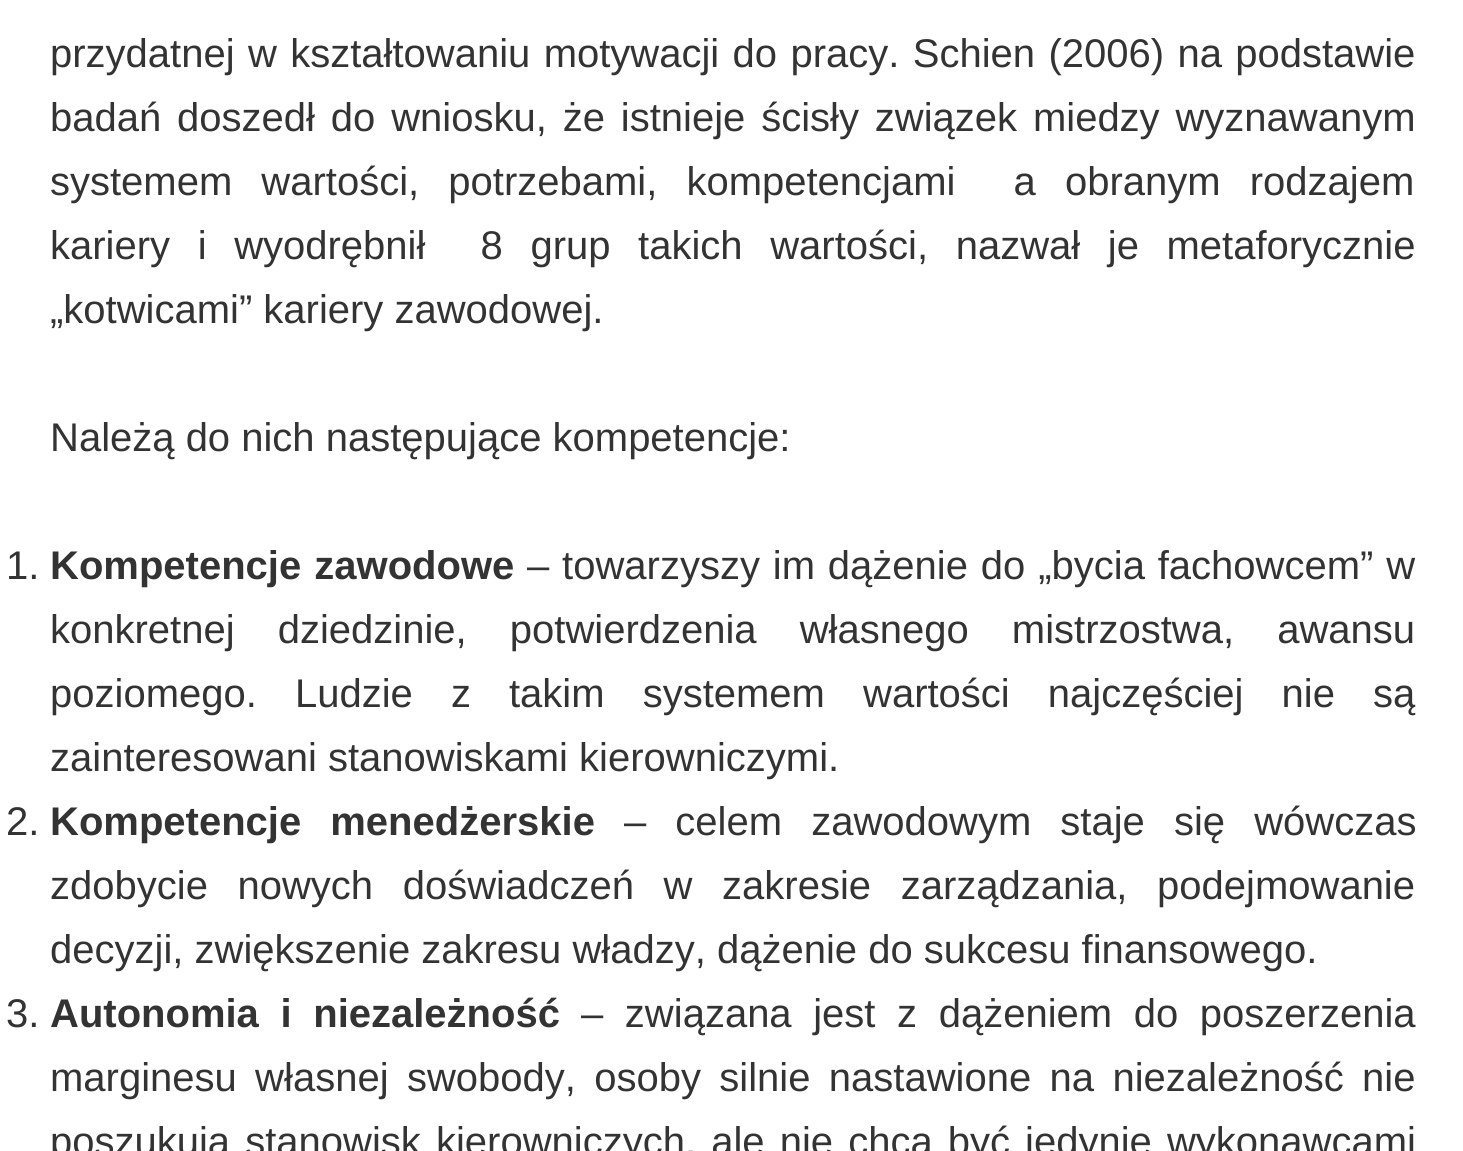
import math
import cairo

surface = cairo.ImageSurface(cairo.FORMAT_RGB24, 1463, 1151)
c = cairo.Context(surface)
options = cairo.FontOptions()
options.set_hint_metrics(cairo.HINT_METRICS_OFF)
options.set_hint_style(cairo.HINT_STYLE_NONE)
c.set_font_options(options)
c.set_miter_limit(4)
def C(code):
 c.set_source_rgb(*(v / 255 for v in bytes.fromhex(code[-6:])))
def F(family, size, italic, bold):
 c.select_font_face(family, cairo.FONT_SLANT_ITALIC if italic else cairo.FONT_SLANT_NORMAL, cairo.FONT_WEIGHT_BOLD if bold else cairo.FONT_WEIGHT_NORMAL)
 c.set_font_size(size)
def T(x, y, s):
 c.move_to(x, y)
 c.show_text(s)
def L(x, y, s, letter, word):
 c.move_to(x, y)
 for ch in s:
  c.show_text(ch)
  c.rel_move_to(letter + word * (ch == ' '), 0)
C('ffffff')
c.paint()
F('Liberation Sans',40,0,0)
C('333333')
L(50,67,'przydatnej w kształtowaniu motywacji do pracy. Schien (2006) na podstawie',0,2.25)
L(50,131,'badań doszedł do wniosku, że istnieje ścisły związek miedzy wyznawanym',0,4.75)
L(50,195,'systemem wartości, potrzebami, kompetencjami  a obranym rodzajem',0,18)
L(50,259,'kariery i wyodrębnił  8 grup takich wartości, nazwał je metaforycznie',0,16.5)
T(50,323,'„kotwicami” kariery zawodowej.')
T(50,451,'Należą do nich następujące kompetencje:')
T(6,579,'1.')
F('Liberation Sans',40,0,1)
L(50,579,'Kompetencje zawodowe',0,2)
F('Liberation Sans',40,0,0)
L(527,579,'– towarzyszy im dążenie do „bycia fachowcem” w',0,1.75)
L(50,643,'konkretnej dziedzinie, potwierdzenia własnego mistrzostwa, awansu',0,32)
L(50,707,'poziomego. Ludzie z takim systemem wartości najczęściej nie są',0,27)
T(50,771,'zainteresowani stanowiskami kierowniczymi.')
T(6,835,'2.')
F('Liberation Sans',40,0,1)
L(50,835,'Kompetencje menedżerskie',0,18)
F('Liberation Sans',40,0,0)
L(624,835,'– celem zawodowym staje się wówczas',0,18)
L(50,899,'zdobycie nowych doświadczeń w zakresie zarządzania, podejmowanie',0,18.5)
T(50,963,'decyzji, zwiększenie zakresu władzy, dążenie do sukcesu finansowego.')
T(6,1027,'3.')
F('Liberation Sans',40,0,1)
L(50,1027,'Autonomia i niezależność',0,10.5)
F('Liberation Sans',40,0,0)
L(581,1027,'– związana jest z dążeniem do poszerzenia',0,10.5)
L(50,1091,'marginesu własnej swobody, osoby silnie nastawione na niezależność nie',0,7.25)
L(50,1155,'poszukują stanowisk kierowniczych, ale nie chcą być jedynie wykonawcami',0,4)
surface.write_to_png('o.png')
